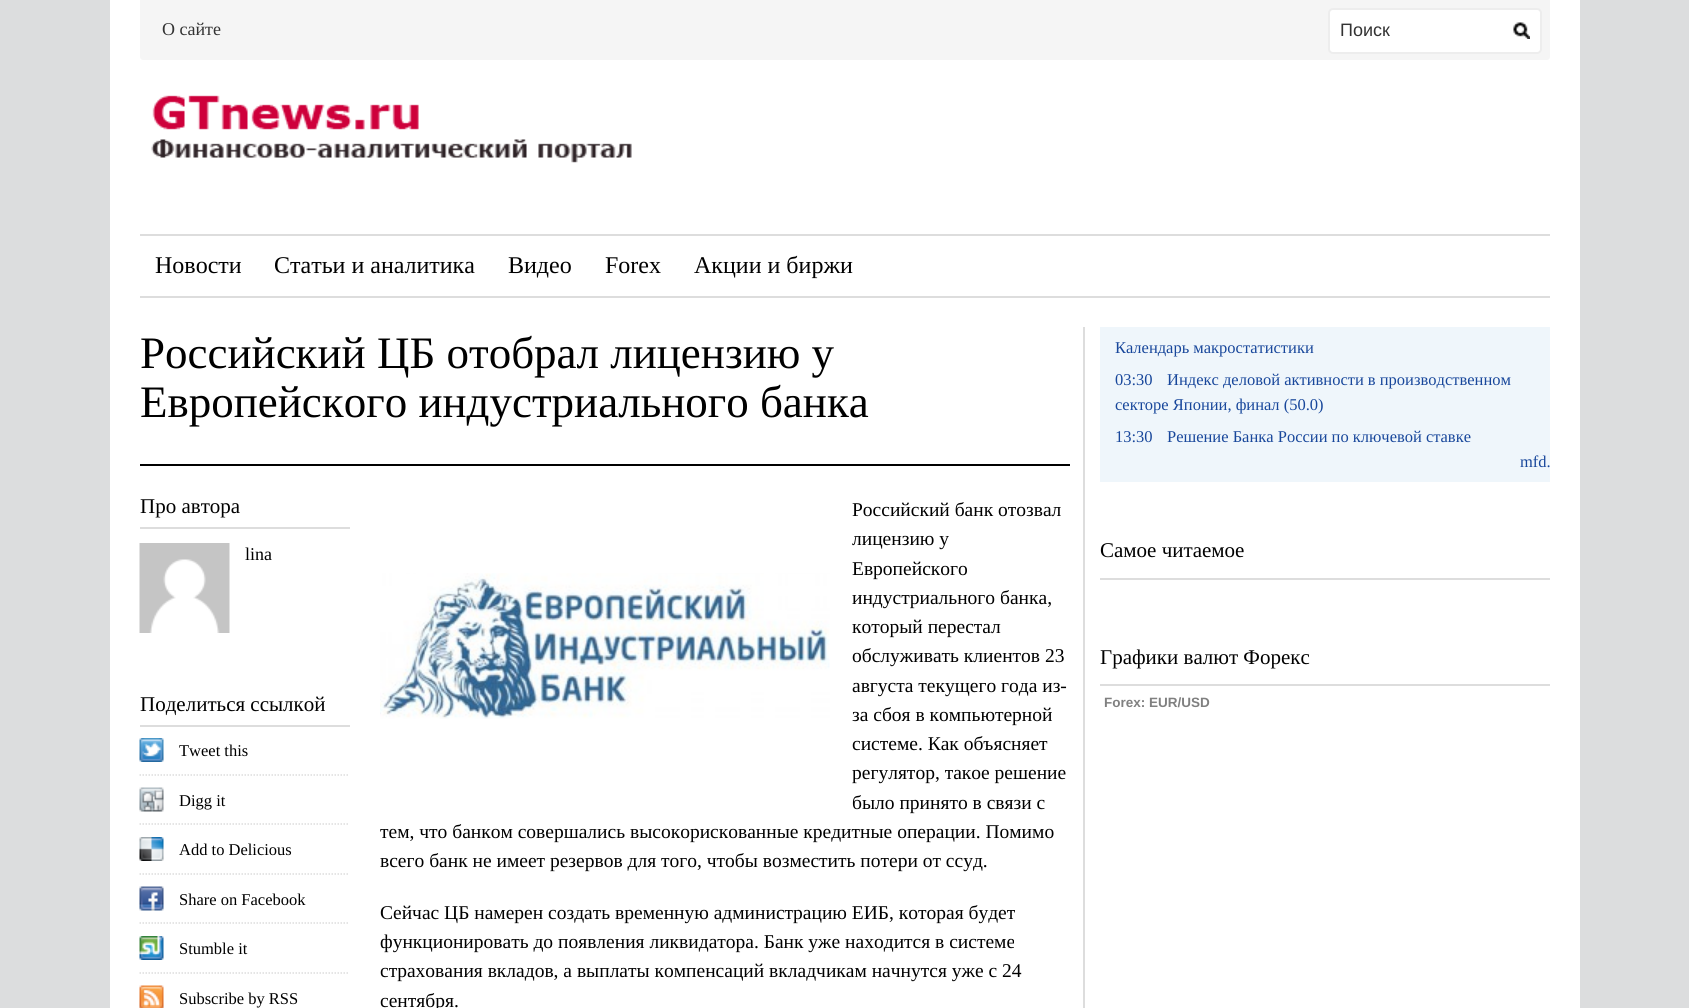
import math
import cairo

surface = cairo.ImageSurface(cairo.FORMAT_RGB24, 1689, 1008)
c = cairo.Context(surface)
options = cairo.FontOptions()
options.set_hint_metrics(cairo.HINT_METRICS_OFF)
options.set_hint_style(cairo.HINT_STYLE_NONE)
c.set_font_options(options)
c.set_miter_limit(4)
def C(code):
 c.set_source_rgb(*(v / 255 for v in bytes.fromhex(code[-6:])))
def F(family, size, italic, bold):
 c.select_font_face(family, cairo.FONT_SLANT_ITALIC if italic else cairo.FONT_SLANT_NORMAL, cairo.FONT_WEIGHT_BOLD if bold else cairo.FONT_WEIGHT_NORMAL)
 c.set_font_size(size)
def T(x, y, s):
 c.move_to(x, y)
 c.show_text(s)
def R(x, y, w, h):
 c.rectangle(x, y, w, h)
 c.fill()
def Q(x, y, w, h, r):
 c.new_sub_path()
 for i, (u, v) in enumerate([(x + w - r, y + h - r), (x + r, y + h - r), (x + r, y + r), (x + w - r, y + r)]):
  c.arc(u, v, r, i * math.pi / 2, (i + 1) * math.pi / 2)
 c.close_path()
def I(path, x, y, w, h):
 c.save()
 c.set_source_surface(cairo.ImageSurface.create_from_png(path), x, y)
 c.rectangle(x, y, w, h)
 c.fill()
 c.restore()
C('dcddde')
c.paint()
C('ffffff')
R(110,0,1470,1008)
C('f5f5f5')
c.new_path()
c.move_to(140,0)
c.line_to(1550,0)
c.line_to(1550,57)
c.curve_to(1550,58.5,1548.5,60,1547,60)
c.line_to(143,60)
c.curve_to(141.5,60,140,58.5,140,57)
c.close_path()
c.fill()
F('Liberation Serif',18,0,0)
C('333333')
T(162,35,'О сайте')
C('ffffff')
Q(1329,9,212,44,4)
c.fill_preserve()
C('ededed')
c.stroke()
F('Liberation Sans',18,0,0)
C('333333')
T(1340,36,'Поиск')
I('1.png',1513,22,17,17)
I('2.png',151,95,481,68)
C('dddddd')
R(140,234,1410,2)
R(140,296,1410,2)
F('Liberation Serif',24,0,0)
C('000000')
T(155,273,'Новости')
T(274,273,'Статьи и аналитика')
T(508,273,'Видео')
T(605,273,'Forex')
T(694,273,'Акции и биржи')
C('dddddd')
R(1083,327,2,681)
C('000000')
R(140,464,930,2)
F('Liberation Serif',45,0,0)
T(140,368,'Российский ЦБ отобрал лицензию у')
T(140,417,'Европейского индустриального банка')
C('dddddd')
R(140,527,210,2)
F('Liberation Serif',21,0,0)
C('000000')
T(140,513,'Про автора')
I('3.png',139,543,91,90)
F('Liberation Serif',18,0,0)
T(245,560,'lina')
C('dddddd')
R(140,725,210,2)
F('Liberation Serif',21,0,0)
C('000000')
T(140,711,'Поделиться ссылкой')
c.new_path()
c.move_to(139.5,775)
c.line_to(349.5,775)
C('dddddd')
c.set_line_width(1.5)
c.set_dash([1.5,1.5])
c.stroke()
I('4.png',139,738,25,24)
F('Liberation Serif',16.5,0,0)
C('000000')
T(179,756,'Tweet this')
c.new_path()
c.move_to(139.5,824)
c.line_to(349.5,824)
C('dddddd')
c.stroke()
I('5.png',139,787,25,25)
C('000000')
T(179,806,'Digg it')
c.new_path()
c.move_to(139.5,874)
c.line_to(349.5,874)
C('dddddd')
c.stroke()
I('6.png',139,837,25,24)
C('000000')
T(179,855,'Add to Delicious')
c.new_path()
c.move_to(139.5,923)
c.line_to(349.5,923)
C('dddddd')
c.stroke()
I('7.png',139,886,25,25)
C('000000')
T(179,905,'Share on Facebook')
c.new_path()
c.move_to(139.5,973)
c.line_to(349.5,973)
C('dddddd')
c.stroke()
I('8.png',139,936,25,24)
C('000000')
T(179,954,'Stumble it')
I('9.png',139,985,25,23)
T(179,1004,'Subscribe by RSS')
F('Liberation Serif',19.5,0,0)
T(852,516,'Российский банк отозвал')
T(852,545,'лицензию у')
T(852,575,'Европейского')
I('10.png',380,573,450,146)
T(852,604,'индустриального банка,')
T(852,633,'который перестал')
T(852,662,'обслуживать клиентов 23')
T(852,692,'августа текущего года из-')
T(852,721,'за сбоя в компьютерной')
T(852,750,'системе. Как объясняет')
T(852,779,'регулятор, такое решение')
T(852,809,'было принято в связи с')
c.save()
c.rectangle(380,473,690,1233)
c.clip()
T(380,838,'тем, что банком совершались высокорискованные кредитные операции. Помимо')
c.restore()
T(380,867,'всего банк не имеет резервов для того, чтобы возместить потери от ссуд.')
T(380,919,'Сейчас ЦБ намерен создать временную администрацию ЕИБ, которая будет')
T(380,948,'функционировать до появления ликвидатора. Банк уже находится в системе')
T(380,977,'страхования вкладов, а выплаты компенсаций вкладчикам начнутся уже с 24')
T(380,1007,'сентября.')
C('eff6fb')
R(1100,327,450,155)
F('Liberation Serif',16.5,0,0)
C('18479b')
T(1115,353,'Календарь макростатистики')
T(1115,385,'03:30')
T(1167,385,'Индекс деловой активности в производственном')
T(1115,410,'секторе Японии, финал (50.0)')
T(1115,442,'13:30')
T(1167,442,'Решение Банка России по ключевой ставке')
T(1520,467,'mfd.')
C('dddddd')
R(1100,578,450,2)
F('Liberation Serif',21,0,0)
C('000000')
T(1100,557,'Самое читаемое')
C('dddddd')
R(1100,684,450,2)
C('000000')
T(1100,664,'Графики валют Форекс')
F('Liberation Sans',13.5,0,1)
C('808080')
T(1104,707,'Forex: EUR/USD')
surface.write_to_png('o.png')
